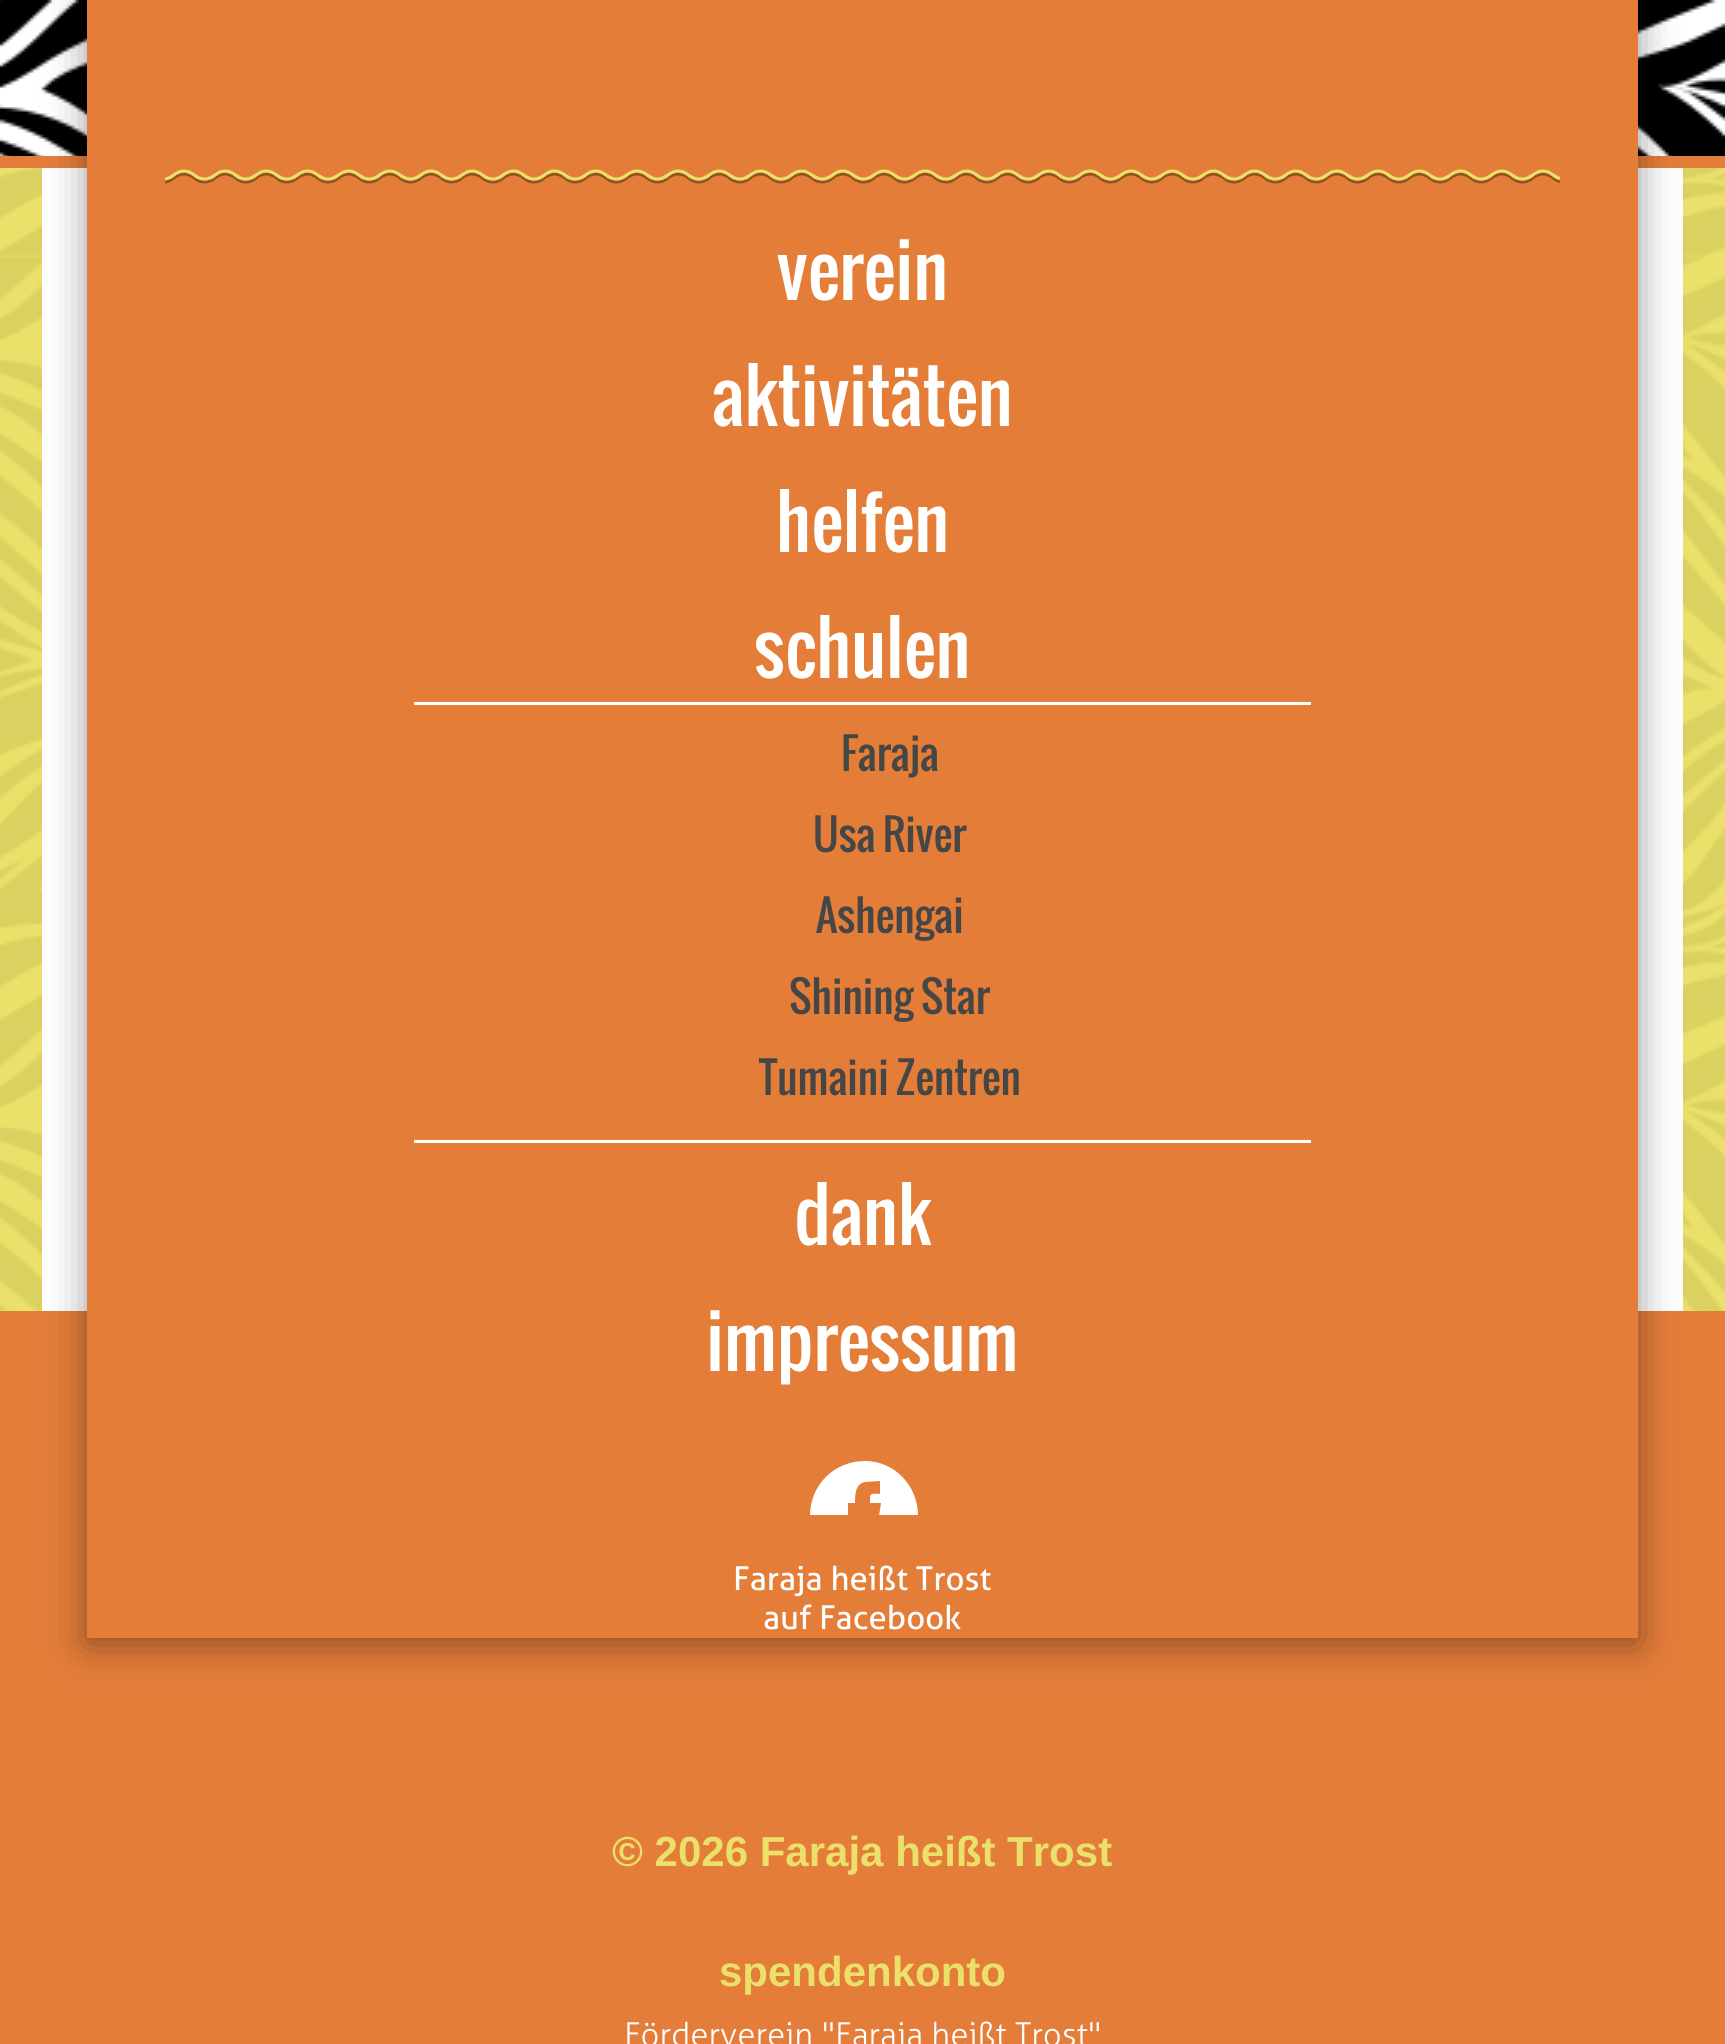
import math
import cairo

surface = cairo.ImageSurface(cairo.FORMAT_RGB24, 1725, 2044)
c = cairo.Context(surface)
options = cairo.FontOptions()
options.set_hint_metrics(cairo.HINT_METRICS_OFF)
options.set_hint_style(cairo.HINT_STYLE_NONE)
c.set_font_options(options)
c.set_miter_limit(4)
def C(code):
 c.set_source_rgb(*(v / 255 for v in bytes.fromhex(code[-6:])))
def F(family, size, italic, bold):
 c.select_font_face(family, cairo.FONT_SLANT_ITALIC if italic else cairo.FONT_SLANT_NORMAL, cairo.FONT_WEIGHT_BOLD if bold else cairo.FONT_WEIGHT_NORMAL)
 c.set_font_size(size)
def T(x, y, s):
 c.move_to(x, y)
 c.show_text(s)
def R(x, y, w, h):
 c.rectangle(x, y, w, h)
 c.fill()
def Q(x, y, w, h, r):
 c.new_sub_path()
 for i, (u, v) in enumerate([(x + w - r, y + h - r), (x + r, y + h - r), (x + r, y + r), (x + w - r, y + r)]):
  c.arc(u, v, r, i * math.pi / 2, (i + 1) * math.pi / 2)
 c.close_path()
def S(x, y, w, h, r, blur, alpha):
 c.push_group_with_content(cairo.CONTENT_ALPHA)
 c.set_operator(cairo.OPERATOR_SOURCE)
 for i in range(15, -16, -2):
  e = blur * i / 6
  if min(w, h) + 2 * e > 0:
   c.set_source_rgba(0, 0, 0, alpha * math.erfc((i - 1) / 8.5) / 2)
   Q(x - e, y - e, w + 2 * e, h + 2 * e, max(0, min(r + e + blur * .6, min(w, h) / 2 + e)))
   c.fill()
 c.mask(c.pop_group())
def I(path, x, y, w, h):
 c.save()
 c.set_source_surface(cairo.ImageSurface.create_from_png(path), x, y)
 c.rectangle(x, y, w, h)
 c.fill()
 c.restore()
C('eae06a')
c.paint()
I('1.png',0,168,1725,1143)
C('ffffff')
R(42,168,1641,1143)
R(0,0,1725,156)
I('2.png',0,0,1725,156)
C('e47d3a')
R(0,156,1725,12)
R(0,1311,1725,733)
C('000000')
S(87,6,1551,1638,0,19.5,.4)
C('e37d38')
R(87,0,1551,1638)
I('3.png',165,169,1395,15)
F('Oswald',72,0,0)
C('ffffff')
T(777,300,'verein')
T(712,426,'aktivitäten')
T(776,552,'helfen')
T(754,678,'schulen')
R(414,702,897,3)
R(414,1140,897,3)
F('Oswald',42,0,0)
C('464646')
T(841,771,'Faraja')
T(813,852,'Usa River')
T(816,933,'Ashengai')
T(789,1014,'Shining Star')
T(759,1095,'Tumaini Zentren')
F('Oswald',72,0,0)
C('ffffff')
T(794,1245,'dank')
T(706,1371,'impressum')
c.save()
c.rectangle(810,1461,108,54)
c.clip()
c.set_fill_rule(cairo.FILL_RULE_EVEN_ODD)
c.new_path()
c.move_to(864,1569)
c.curve_to(834,1568,810,1545,810,1516)
c.curve_to(810,1485,834,1461,865,1461)
c.curve_to(894,1461,918,1485,918,1516)
c.curve_to(917,1545,894,1569,864,1569)
c.close_path()
c.move_to(880,1494)
c.line_to(880,1481)
c.line_to(865,1482)
c.curve_to(855,1484,855,1495,855,1503)
c.line_to(848,1503)
c.line_to(848,1516)
c.line_to(855,1516)
c.line_to(855,1550)
c.line_to(870,1550)
c.line_to(870,1516)
c.line_to(879,1516)
c.line_to(881,1503)
c.line_to(870,1503)
c.line_to(870,1498)
c.curve_to(870,1492,875,1494,880,1494)
c.close_path()
c.fill()
c.restore()
F('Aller',33,0,0)
T(733,1590,'Faraja heißt Trost')
T(763,1629,'auf Facebook')
F('Liberation Sans',42,0,1)
C('eae06a')
T(612,1866,'© 2026 Faraja heißt Trost')
T(719,1986,'spendenkonto')
F('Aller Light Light',33,0,0)
C('ffffff')
T(624,2046,'Förderverein "Faraja heißt Trost"')
surface.write_to_png('o.png')
